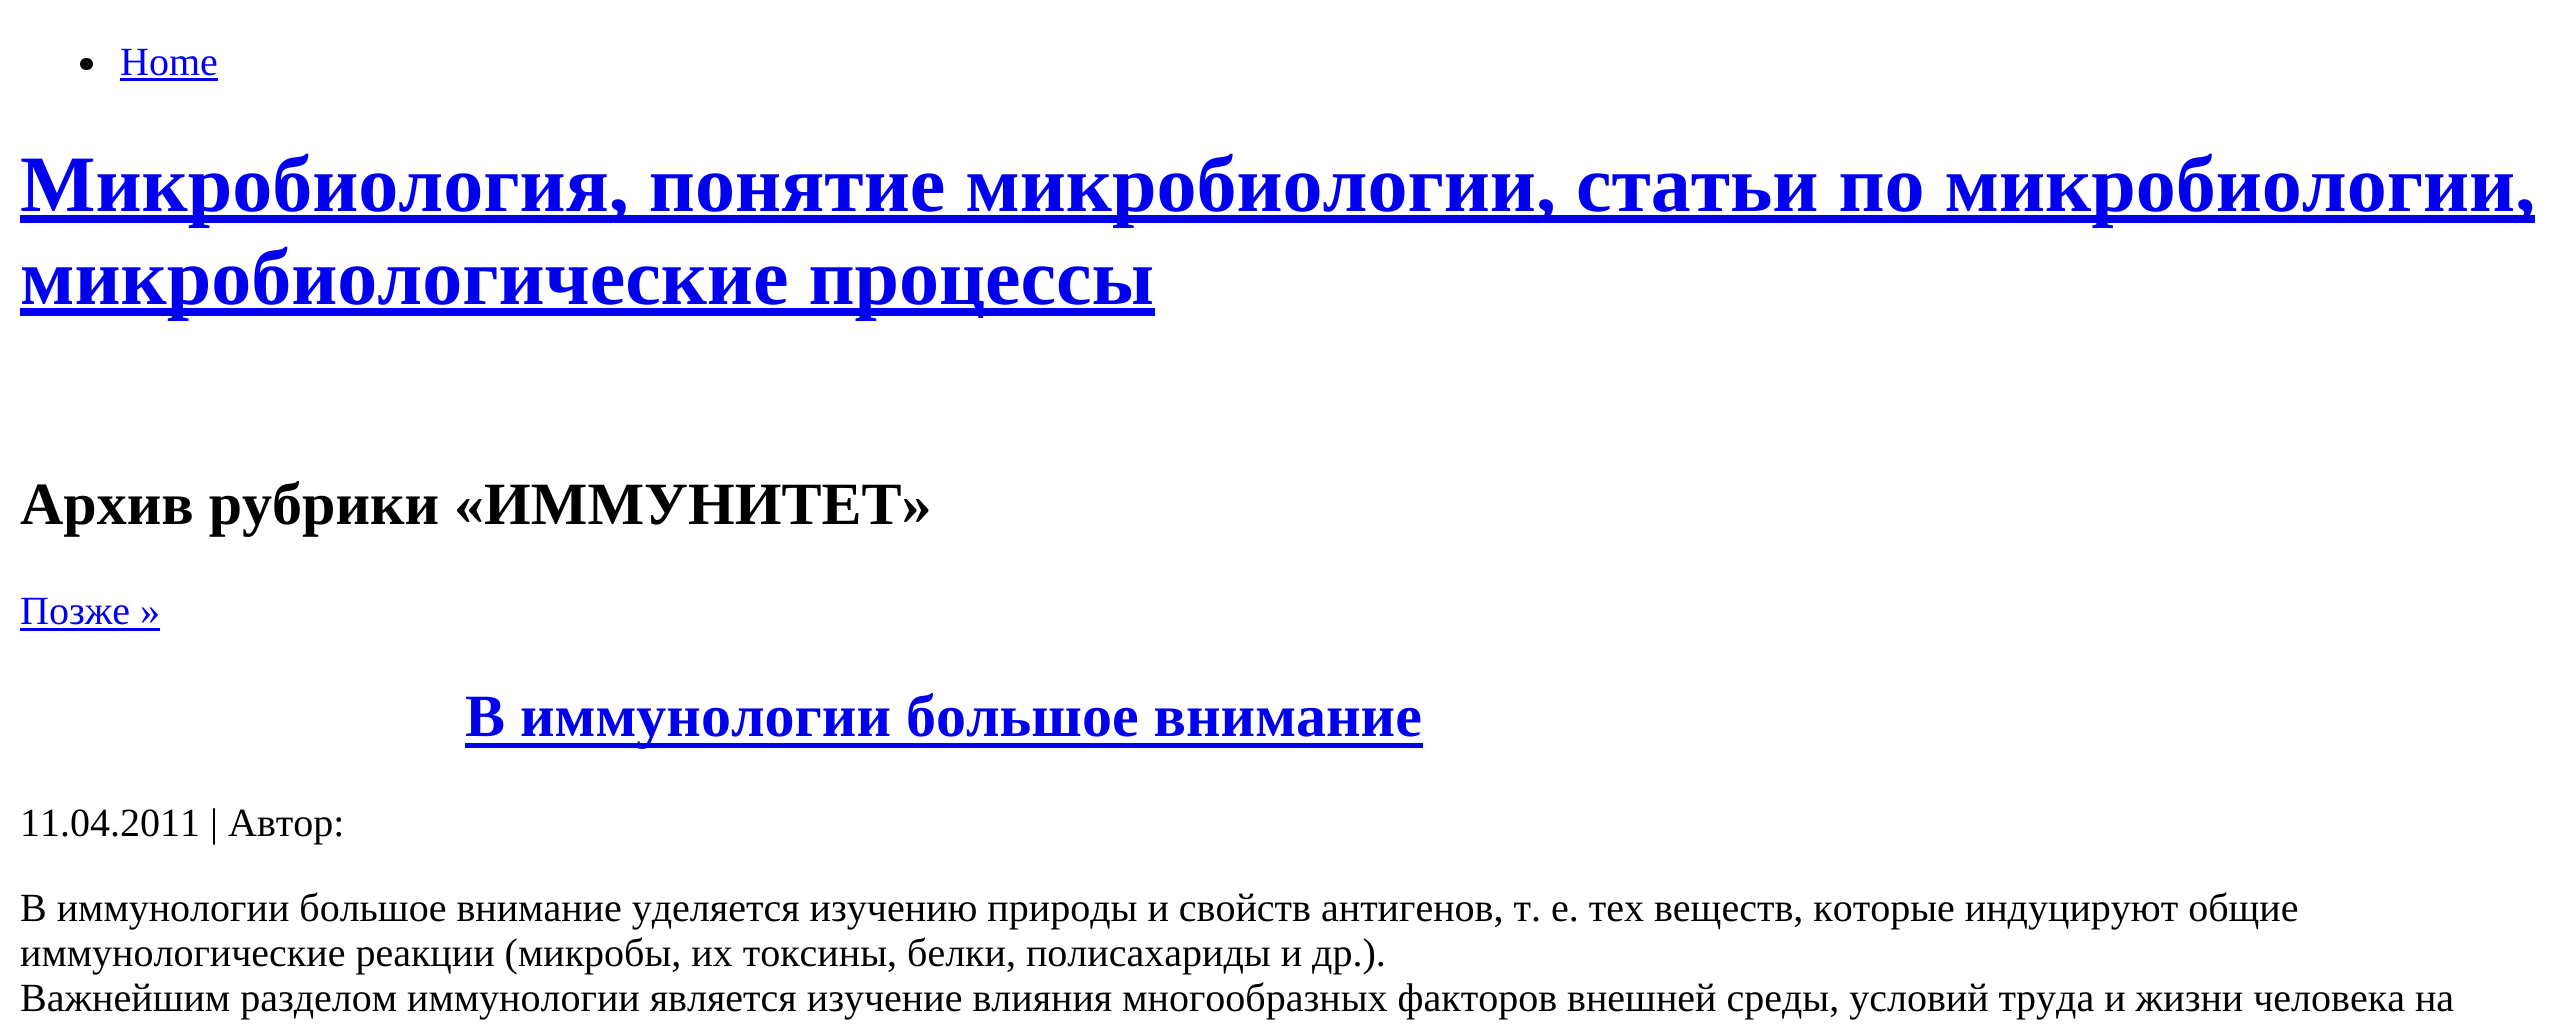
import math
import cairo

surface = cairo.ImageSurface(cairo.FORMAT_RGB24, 2563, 1025)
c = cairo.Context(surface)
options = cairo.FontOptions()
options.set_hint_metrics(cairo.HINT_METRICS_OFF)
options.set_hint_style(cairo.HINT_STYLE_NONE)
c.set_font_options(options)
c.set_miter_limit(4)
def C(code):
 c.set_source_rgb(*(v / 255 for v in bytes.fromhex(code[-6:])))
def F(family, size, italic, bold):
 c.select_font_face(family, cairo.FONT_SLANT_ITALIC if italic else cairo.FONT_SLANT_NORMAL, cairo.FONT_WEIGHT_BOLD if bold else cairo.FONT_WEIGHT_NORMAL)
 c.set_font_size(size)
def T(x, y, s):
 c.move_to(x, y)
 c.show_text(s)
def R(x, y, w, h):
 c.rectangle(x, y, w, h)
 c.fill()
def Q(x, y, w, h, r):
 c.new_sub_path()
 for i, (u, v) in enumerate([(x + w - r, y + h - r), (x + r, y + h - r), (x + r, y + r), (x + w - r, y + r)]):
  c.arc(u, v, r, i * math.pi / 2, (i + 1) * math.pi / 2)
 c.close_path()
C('ffffff')
c.paint()
C('000000')
Q(80,58,13,12,6)
c.fill()
F('Liberation Serif',40,0,0)
C('0000ee')
T(120,75,'Home')
R(120,78,98,3)
R(20,215,2515,8)
F('Liberation Serif',80,0,1)
T(20,211,'Микробиология, понятие микробиологии, статьи по микробиологии,')
R(20,308,1135,8)
T(20,304,'микробиологические процессы')
F('Liberation Serif',60,0,1)
C('000000')
T(20,524,'Архив рубрики «ИММУНИТЕТ»')
F('Liberation Serif',40,0,0)
C('0000ee')
T(20,624,'Позже »')
R(20,628,140,3)
R(465,743,958,5)
F('Liberation Serif',60,0,1)
T(465,736,'В иммунологии большое внимание')
F('Liberation Serif',40,0,0)
C('000000')
T(20,836,'11.04.2011 | Автор:')
T(20,921,'В иммунологии большое внимание уделяется изучению природы и свойств антигенов, т. е. тех веществ, которые индуцируют общие')
T(20,966,'иммунологические реакции (микробы, их токсины, белки, полисахариды и др.).')
T(20,1011,'Важнейшим разделом иммунологии является изучение влияния многообразных факторов внешней среды, условий труда и жизни человека на')
surface.write_to_png('o.png')
